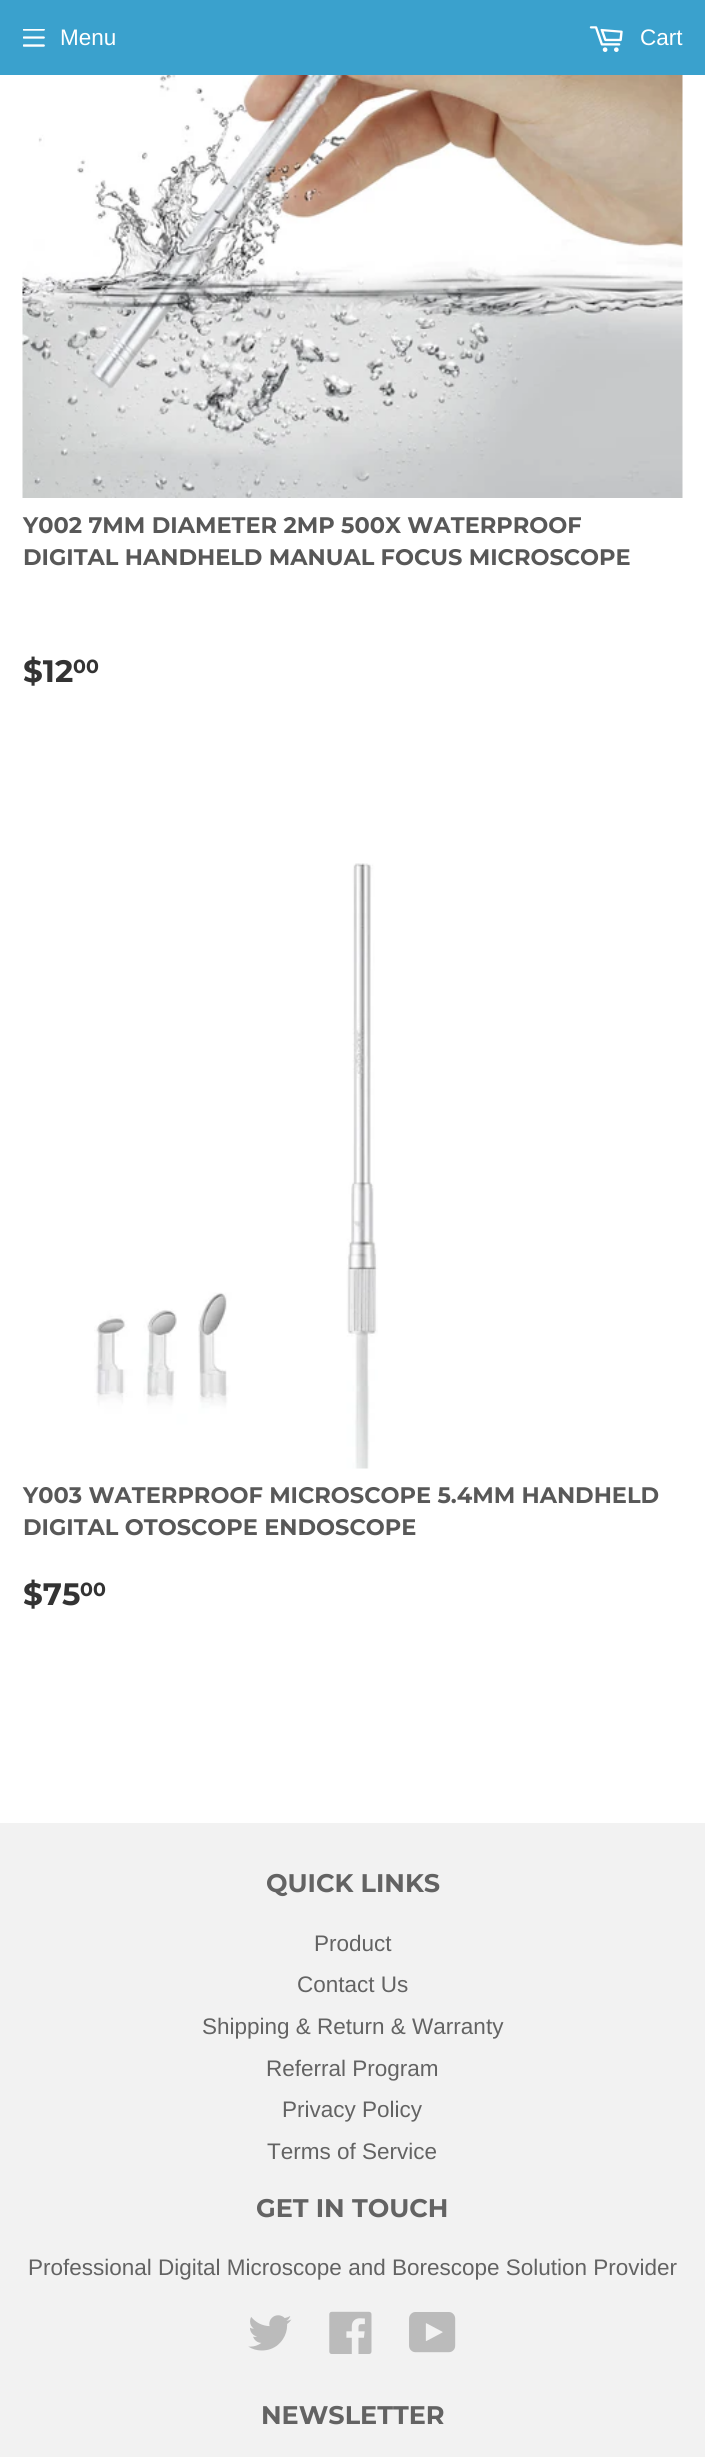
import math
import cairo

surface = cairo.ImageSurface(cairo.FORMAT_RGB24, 705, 2457)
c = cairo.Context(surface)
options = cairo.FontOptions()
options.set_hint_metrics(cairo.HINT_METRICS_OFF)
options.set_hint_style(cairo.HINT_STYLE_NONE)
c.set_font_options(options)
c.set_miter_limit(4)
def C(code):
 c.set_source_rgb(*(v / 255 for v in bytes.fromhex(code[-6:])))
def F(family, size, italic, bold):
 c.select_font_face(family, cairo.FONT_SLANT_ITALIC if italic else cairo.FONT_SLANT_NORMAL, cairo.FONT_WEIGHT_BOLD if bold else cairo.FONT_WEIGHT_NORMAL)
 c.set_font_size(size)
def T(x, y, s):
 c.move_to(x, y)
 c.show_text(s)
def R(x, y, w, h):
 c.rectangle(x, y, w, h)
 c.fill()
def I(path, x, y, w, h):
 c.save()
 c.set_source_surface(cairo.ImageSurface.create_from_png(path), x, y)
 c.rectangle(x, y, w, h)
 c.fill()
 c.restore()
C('ffffff')
c.paint()
C('3aa1cd')
R(0,0,705,75)
I('1.png',23,29,22,18)
F('Liberation Sans',22.5,0,0)
C('ffffff')
T(60,45,'Menu')
I('2.png',589,26,34,26)
T(640,45,'Cart')
I('3.png',22,75,661,423)
F('Montserrat Thin',22.5,0,0)
C('585858')
T(23,533,'Y002 7MM DIAMETER 2MP 500X WATERPROOF')
T(23,565,'DIGITAL HANDHELD MANUAL FOCUS MICROSCOPE')
F('Montserrat Thin',31,0,0)
C('333333')
T(23,682,'$12')
F('Montserrat Thin',19,0,0)
T(73,673,'00')
I('4.png',94,863,284,606)
F('Montserrat Thin',22.5,0,0)
C('585858')
T(23,1503,'Y003 WATERPROOF MICROSCOPE 5.4MM HANDHELD')
T(23,1535,'DIGITAL OTOSCOPE ENDOSCOPE')
F('Montserrat Thin',31,0,0)
C('333333')
T(23,1605,'$75')
F('Montserrat Thin',19,0,0)
T(80,1596,'00')
C('f2f2f2')
R(0,1823,705,634)
F('Montserrat Thin',25.5,0,0)
C('636363')
T(266,1892,'QUICK LINKS')
F('Liberation Sans',22.5,0,0)
T(314,1951,'Product')
T(297,1992,'Contact Us')
T(202,2034,'Shipping & Return & Warranty')
T(266,2076,'Referral Program')
T(282,2117,'Privacy Policy')
T(267,2159,'Terms of Service')
F('Montserrat Thin',25.5,0,0)
T(256,2217,'GET IN TOUCH')
F('Liberation Sans',22.5,0,0)
T(28,2275,'Professional Digital Microscope and Borescope Solution Provider')
I('5.png',248,2315,44,36)
I('6.png',329,2311,43,43)
I('7.png',409,2312,47,41)
F('Montserrat Thin',25.5,0,0)
T(261,2424,'NEWSLETTER')
surface.write_to_png('o.png')
